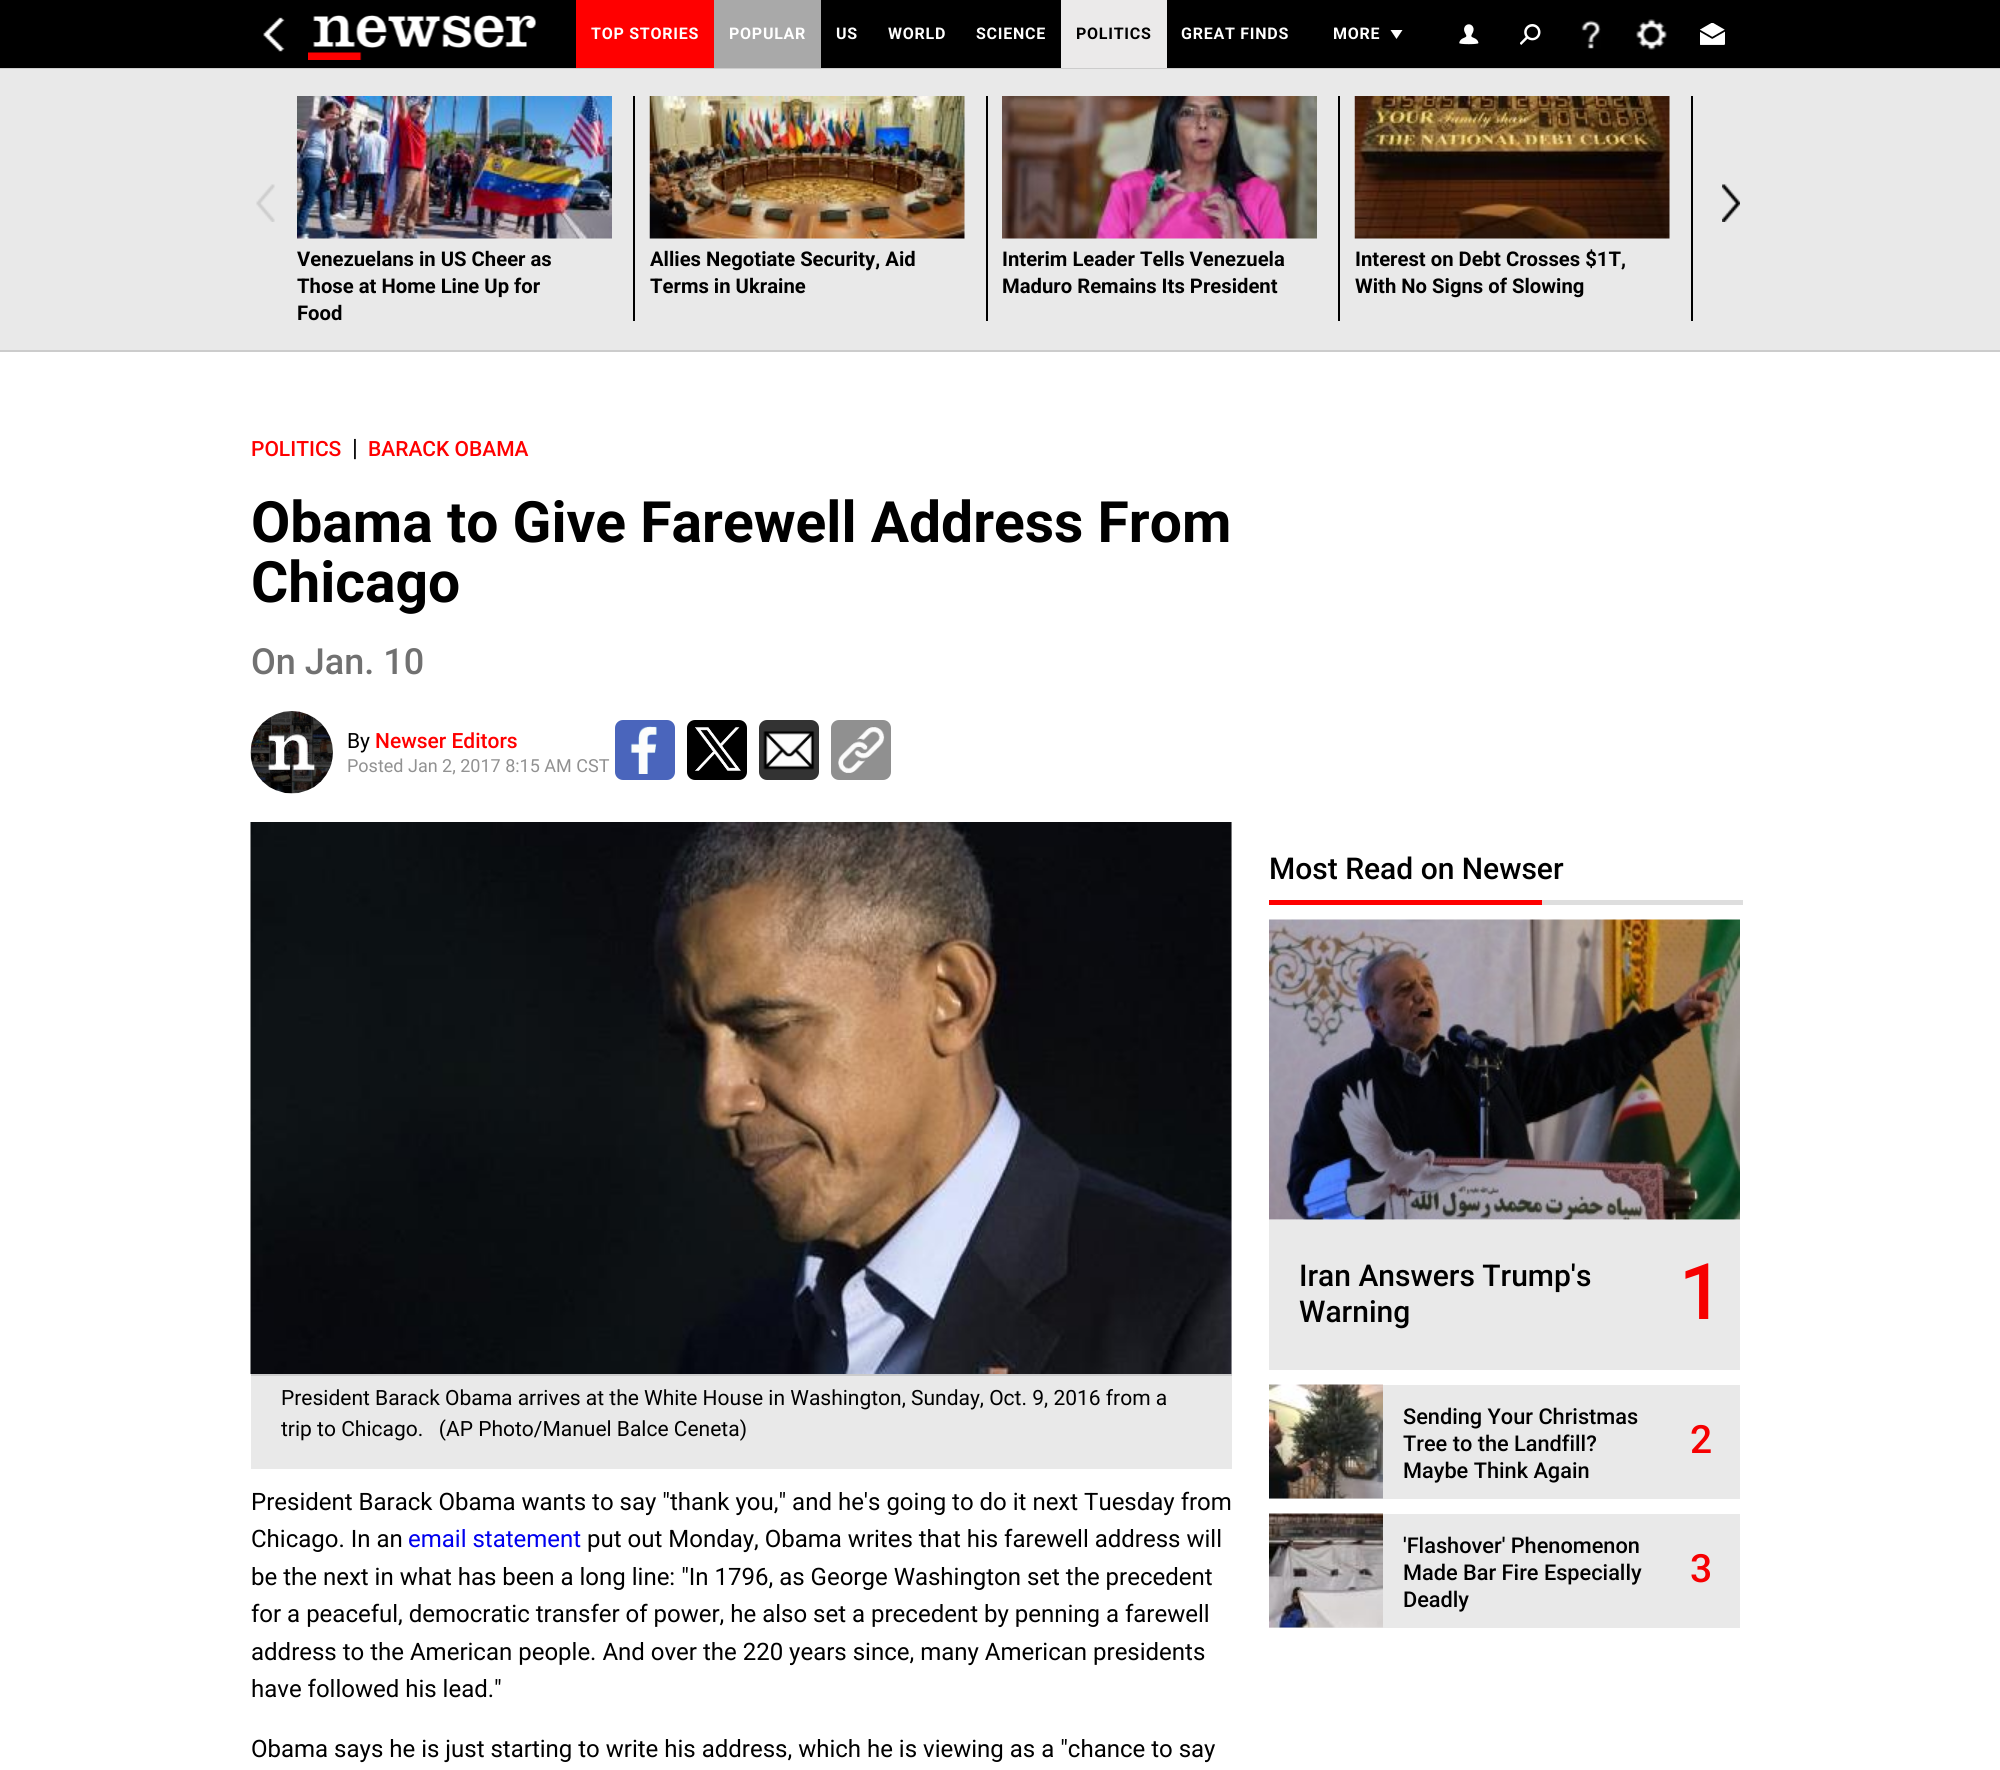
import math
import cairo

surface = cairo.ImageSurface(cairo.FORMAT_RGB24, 2000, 1770)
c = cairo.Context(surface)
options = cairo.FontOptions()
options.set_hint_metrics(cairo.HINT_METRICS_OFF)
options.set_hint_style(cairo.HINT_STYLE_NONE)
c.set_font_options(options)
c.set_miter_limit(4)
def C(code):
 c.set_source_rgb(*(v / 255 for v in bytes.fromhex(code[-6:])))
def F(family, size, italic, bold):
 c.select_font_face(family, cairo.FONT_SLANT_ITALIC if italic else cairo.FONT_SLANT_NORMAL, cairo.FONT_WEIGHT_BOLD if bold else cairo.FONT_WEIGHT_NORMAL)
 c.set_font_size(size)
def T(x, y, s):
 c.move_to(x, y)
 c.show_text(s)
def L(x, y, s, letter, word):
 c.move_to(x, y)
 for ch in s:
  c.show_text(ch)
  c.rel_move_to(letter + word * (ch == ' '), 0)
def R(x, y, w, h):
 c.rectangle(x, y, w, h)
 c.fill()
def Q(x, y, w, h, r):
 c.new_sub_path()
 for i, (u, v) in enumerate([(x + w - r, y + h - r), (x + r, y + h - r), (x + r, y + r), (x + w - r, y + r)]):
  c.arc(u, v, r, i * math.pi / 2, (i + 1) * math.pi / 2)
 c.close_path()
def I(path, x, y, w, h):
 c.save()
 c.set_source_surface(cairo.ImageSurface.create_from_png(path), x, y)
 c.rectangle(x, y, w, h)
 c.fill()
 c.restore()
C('ffffff')
c.paint()
C('000000')
R(0,0,2000,68)
I('1.png',263,17,22,35)
I('2.png',308,15,229,45)
C('ff0000')
R(576,0,138,68)
F('Roboto',16,0,1)
C('ffffff')
L(591,39,'TOP STORIES',.75,0)
C('a9a9a9')
R(714,0,107,68)
C('ffffff')
L(729,39,'POPULAR',.75,0)
L(836,39,'US',.75,0)
L(888,39,'WORLD',.75,0)
L(976,39,'SCIENCE',.75,0)
C('ebeaea')
R(1061,0,106,68)
C('000000')
L(1076,39,'POLITICS',.75,0)
C('ffffff')
L(1181,39,'GREAT FINDS',.75,0)
c.set_fill_rule(cairo.FILL_RULE_EVEN_ODD)
c.new_path()
c.move_to(1390.5,30)
c.line_to(1396.5,39)
c.line_to(1402.5,30)
c.close_path()
c.fill()
L(1333,39,'MORE',.75,0)
I('3.png',1459,24,20,21)
I('4.png',1520,24,21,21)
I('5.png',1581,20,20,29)
I('6.png',1636,19,31,31)
I('7.png',1700,23,25,22)
C('cccccc')
R(0,68,2000,1)
C('e9e9e9')
R(0,69,2000,281)
C('cccccc')
R(0,350,2000,2)
I('8.png',256,184,19,38)
I('9.png',1722,184,18,38)
I('10.png',297,96,315,143)
F('Roboto',20.25,0,1)
C('000000')
T(297,266,'Venezuelans in US Cheer as')
T(297,293,'Those at Home Line Up for')
T(297,320,'Food')
R(633,96,2,225)
I('11.png',649,96,316,143)
T(650,266,'Allies Negotiate Security, Aid')
T(650,293,'Terms in Ukraine')
R(986,96,2,225)
I('12.png',1002,96,315,143)
T(1002,266,'Interim Leader Tells Venezuela')
T(1002,293,'Maduro Remains Its President')
R(1338,96,2,225)
I('13.png',1354,96,316,143)
T(1355,266,'Interest on Debt Crosses $1T,')
T(1355,293,'With No Signs of Slowing')
R(1691,96,2,225)
F('Roboto Medium',21,0,0)
C('ff0000')
T(251,456,'POLITICS')
F('Roboto',24,0,0)
C('000000')
T(352,456,'|')
F('Roboto Medium',21,0,0)
C('ff0000')
T(368,456,'BARACK OBAMA')
F('Roboto',57,0,1)
C('000000')
T(251,542,'Obama to Give Farewell Address From')
T(251,602,'Chicago')
F('Roboto Medium',36,0,0)
C('717171')
T(251,674,'On Jan. 10')
I('14.png',250,711,83,83)
F('Roboto',21,0,0)
C('000000')
T(347,748,'By')
F('Roboto Medium',21,0,0)
C('ff0000')
T(375,748,'Newser Editors')
F('Roboto',18,0,0)
C('919191')
T(347,772,'Posted Jan 2, 2017 8:15 AM CST')
C('4a65bc')
Q(615,720,60,60,8)
c.fill()
I('15.png',630,726,27,48)
C('000000')
Q(687,720,60,60,8)
c.fill()
I('16.png',695,727,46,44)
C('333333')
Q(759,720,60,60,8)
c.fill()
I('17.png',763,731,52,39)
C('909090')
Q(831,720,60,60,8)
c.fill()
I('18.png',838,726,47,47)
C('e9e9e9')
R(251,822,981,647)
C('cccccc')
R(251,1374,981,2)
I('19.png',250,822,982,552)
F('Roboto',21,0,0)
C('000000')
T(281,1405,'President Barack Obama arrives at the White House in Washington, Sunday, Oct. 9, 2016 from a')
T(281,1436,'trip to Chicago.   (AP Photo/Manuel Balce Ceneta)')
F('Roboto',24,0,0)
T(251,1510,'President Barack Obama wants to say "thank you," and he\'s going to do it next Tuesday from')
T(251,1547,'Chicago. In an')
C('0000ee')
T(408,1547,'email statement')
C('000000')
T(587,1547,'put out Monday, Obama writes that his farewell address will')
T(251,1585,'be the next in what has been a long line: "In 1796, as George Washington set the precedent')
T(251,1622,'for a peaceful, democratic transfer of power, he also set a precedent by penning a farewell')
T(251,1660,'address to the American people. And over the 220 years since, many American presidents')
T(251,1697,'have followed his lead."')
T(251,1757,'Obama says he is just starting to write his address, which he is viewing as a "chance to say')
F('Roboto Medium',30,0,0)
T(1269,879,'Most Read on Newser')
C('ff0000')
R(1269,900,273,5)
C('dedede')
R(1542,900,201,5)
I('20.png',1269,919,471,301)
C('e9e9e9')
R(1269,1220,471,150)
C('000000')
T(1299,1286,'Iran Answers Trump\'s')
T(1299,1322,'Warning')
F('Roboto Medium',78,0,0)
C('f60001')
T(1679,1319,'1')
C('e9e9e9')
R(1269,1385,471,114)
I('21.png',1269,1384,114,115)
F('Roboto Medium',21.75,0,0)
C('000000')
T(1403,1424,'Sending Your Christmas')
T(1403,1451,'Tree to the Landfill?')
T(1403,1478,'Maybe Think Again')
F('Roboto Medium',39,0,0)
C('f60001')
T(1690,1453,'2')
C('e9e9e9')
R(1269,1514,471,114)
I('22.png',1269,1513,114,115)
F('Roboto Medium',21.75,0,0)
C('000000')
T(1403,1553,'\'Flashover\' Phenomenon')
T(1403,1580,'Made Bar Fire Especially')
T(1403,1607,'Deadly')
F('Roboto Medium',39,0,0)
C('f60001')
T(1690,1582,'3')
surface.write_to_png('o.png')
